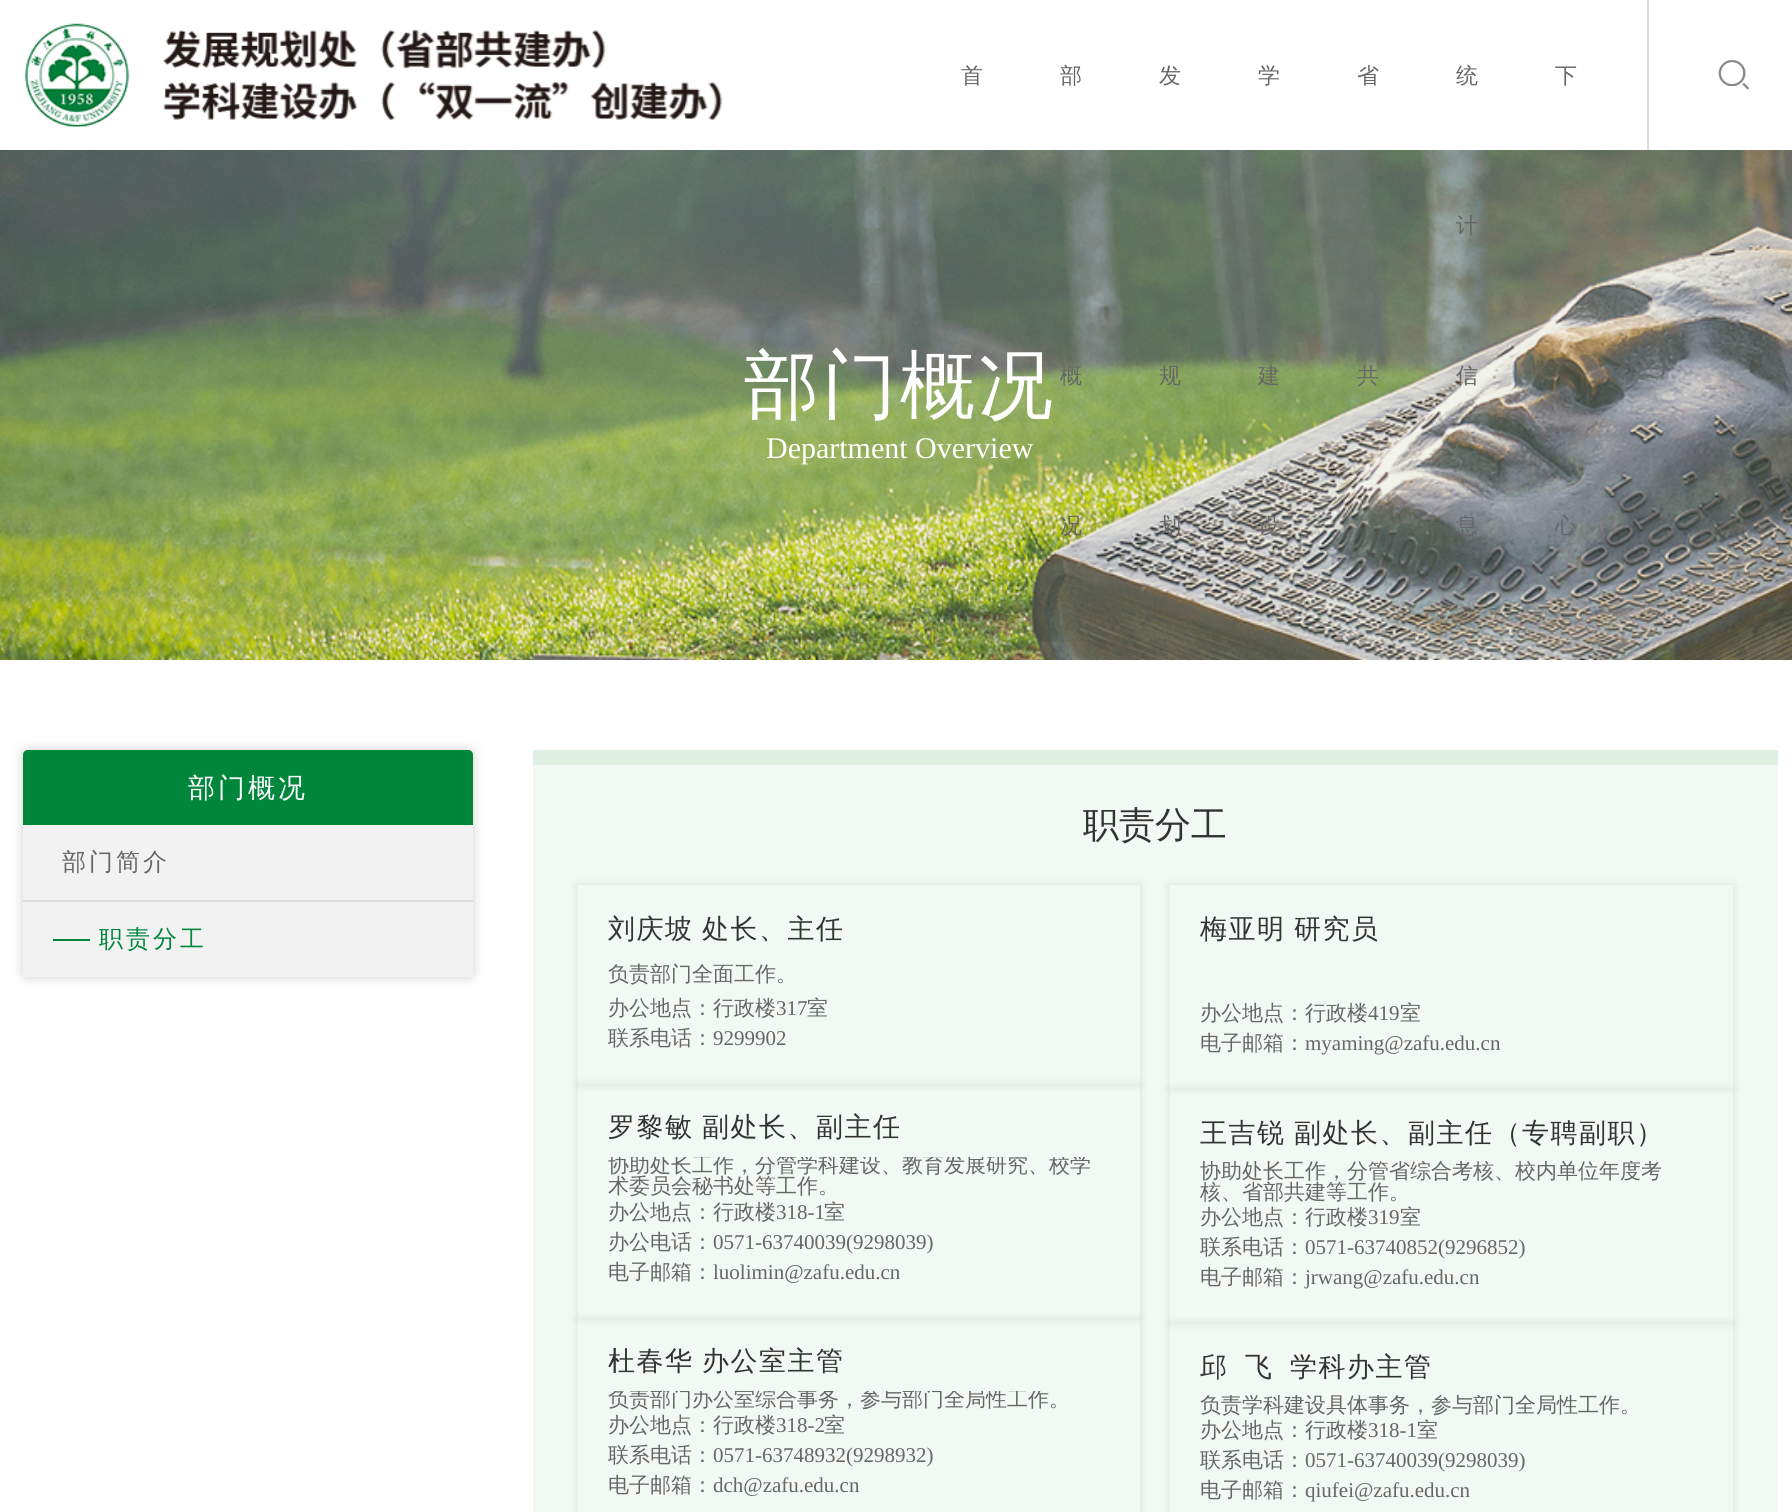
import math
import cairo

surface = cairo.ImageSurface(cairo.FORMAT_RGB24, 1792, 1512)
c = cairo.Context(surface)
options = cairo.FontOptions()
options.set_hint_metrics(cairo.HINT_METRICS_OFF)
options.set_hint_style(cairo.HINT_STYLE_NONE)
c.set_font_options(options)
c.set_miter_limit(4)
def C(code):
 c.set_source_rgb(*(v / 255 for v in bytes.fromhex(code[-6:])))
def F(family, size, italic, bold):
 c.select_font_face(family, cairo.FONT_SLANT_ITALIC if italic else cairo.FONT_SLANT_NORMAL, cairo.FONT_WEIGHT_BOLD if bold else cairo.FONT_WEIGHT_NORMAL)
 c.set_font_size(size)
def T(x, y, s):
 c.move_to(x, y)
 c.show_text(s)
def L(x, y, s, letter, word):
 c.move_to(x, y)
 for ch in s:
  c.show_text(ch)
  c.rel_move_to(letter + word * (ch == ' '), 0)
def R(x, y, w, h):
 c.rectangle(x, y, w, h)
 c.fill()
def Q(x, y, w, h, r):
 c.new_sub_path()
 for i, (u, v) in enumerate([(x + w - r, y + h - r), (x + r, y + h - r), (x + r, y + r), (x + w - r, y + r)]):
  c.arc(u, v, r, i * math.pi / 2, (i + 1) * math.pi / 2)
 c.close_path()
def S(x, y, w, h, r, blur, alpha):
 c.push_group_with_content(cairo.CONTENT_ALPHA)
 c.set_operator(cairo.OPERATOR_SOURCE)
 for i in range(15, -16, -2):
  e = blur * i / 6
  if min(w, h) + 2 * e > 0:
   c.set_source_rgba(0, 0, 0, alpha * math.erfc((i - 1) / 8.5) / 2)
   Q(x - e, y - e, w + 2 * e, h + 2 * e, max(0, min(r + e + blur * .6, min(w, h) / 2 + e)))
   c.fill()
 c.mask(c.pop_group())
def I(path, x, y, w, h):
 c.save()
 c.set_source_surface(cairo.ImageSurface.create_from_png(path), x, y)
 c.rectangle(x, y, w, h)
 c.fill()
 c.restore()
C('ffffff')
c.paint()
I('1.png',25,23,698,104)
F('WenQuanYi Zen Hei Medium',22,0,0)
C('666666')
L(961,83,'首',1.5,0)
L(1060,83,'部',1.5,0)
I('3.png',0,150,1792,510)
L(1060,383,'概',1.5,0)
L(1060,533,'况',1.5,0)
L(1159,83,'发',1.5,0)
L(1159,383,'规',1.5,0)
L(1159,533,'划',1.5,0)
L(1258,83,'学',1.5,0)
L(1258,383,'建',1.5,0)
L(1258,533,'设',1.5,0)
L(1357,83,'省',1.5,0)
L(1357,383,'共',1.5,0)
L(1456,83,'统',1.5,0)
L(1456,233,'计',1.5,0)
L(1456,383,'信',1.5,0)
L(1456,533,'息',1.5,0)
L(1555,83,'下',1.5,0)
L(1555,533,'心',1.5,0)
C('dddddd')
R(1647,0,2,150)
I('2.png',1718,60,32,30)
F('WenQuanYi Zen Hei Medium',75,0,0)
C('ffffff')
L(744,411,'部门概况',3,0)
F('Liberation Serif',30,0,0)
T(766,458,'Department Overview')
C('000000')
S(23,750,450,227,5,6,.2)
C('00873c')
c.new_path()
c.move_to(28,750)
c.line_to(468,750)
c.curve_to(471,750,473,752,473,755)
c.line_to(473,825)
c.line_to(23,825)
c.line_to(23,755)
c.curve_to(23,752,25,750,28,750)
c.close_path()
c.fill()
F('WenQuanYi Zen Hei Medium',27,0,0)
C('ffffff')
L(188,797,'部门概况',3,0)
C('f2f2f2')
c.new_path()
c.move_to(23,825)
c.line_to(473,825)
c.line_to(473,972)
c.curve_to(473,975,471,977,468,977)
c.line_to(28,977)
c.curve_to(25,977,23,975,23,972)
c.close_path()
c.fill()
C('dddddd')
R(23,900,450,2)
F('WenQuanYi Zen Hei Medium',24,0,0)
C('666666')
L(62,870,'部门简介',3,0)
C('00873c')
R(53,939,37,2)
L(99,947,'职责分工',3,0)
C('f2f8f4')
R(533,765,1245,747)
C('dfefe4')
R(533,750,1245,15)
F('WenQuanYi Zen Hei Medium',36,0,0)
C('333333')
T(1083,837,'职责分工')
c.save()
c.set_fill_rule(cairo.FILL_RULE_EVEN_ODD)
c.new_path()
c.move_to(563,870)
c.line_to(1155,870)
c.line_to(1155,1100)
c.line_to(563,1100)
c.close_path()
c.move_to(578,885)
c.line_to(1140,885)
c.line_to(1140,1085)
c.line_to(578,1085)
c.close_path()
c.clip()
C('000000')
S(578,885,562,200,0,4.5,.1)
c.restore()
F('WenQuanYi Zen Hei Medium',27,0,0)
L(608,938,'刘庆坡 处长、主任',1.5,-1)
F('WenQuanYi Zen Hei Medium',21,0,0)
C('666666')
T(608,981,'负责部门全面工作。')
T(608,1015,'办公地点：行政楼')
F('Liberation Serif',21,0,0)
T(776,1015,'317')
F('WenQuanYi Zen Hei Medium',21,0,0)
T(807,1015,'室')
c.save()
c.rectangle(608,1025,237,30)
c.clip()
T(608,1045,'联系电话：')
c.restore()
F('Liberation Serif',21,0,0)
T(713,1045,'9299902')
c.save()
c.set_fill_rule(cairo.FILL_RULE_EVEN_ODD)
c.new_path()
c.move_to(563,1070)
c.line_to(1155,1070)
c.line_to(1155,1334)
c.line_to(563,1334)
c.close_path()
c.move_to(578,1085)
c.line_to(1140,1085)
c.line_to(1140,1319)
c.line_to(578,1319)
c.close_path()
c.clip()
C('000000')
S(578,1085,562,234,0,4.5,.1)
c.restore()
F('WenQuanYi Zen Hei Medium',27,0,0)
C('333333')
L(608,1136,'罗黎敏 副处长、副主任',1.5,-1)
c.save()
c.rectangle(608,1157,502,42)
c.clip()
F('WenQuanYi Zen Hei Medium',21,0,0)
C('666666')
T(608,1172,'协助处长工作，分管学科建设、教育发展研究、校学')
c.restore()
F('WenQuanYi Zen Hei Medium',21,0,0)
C('666666')
T(608,1193,'术委员会秘书处等工作。')
T(608,1219,'办公地点：行政楼')
F('Liberation Serif',21,0,0)
T(776,1219,'318-1')
F('WenQuanYi Zen Hei Medium',21,0,0)
T(824,1219,'室')
T(608,1249,'办公电话：')
F('Liberation Serif',21,0,0)
T(713,1249,'0571-63740039(9298039)')
F('WenQuanYi Zen Hei Medium',21,0,0)
T(608,1279,'电子邮箱：')
F('Liberation Serif',21,0,0)
T(713,1279,'luolimin@zafu.edu.cn')
c.save()
c.set_fill_rule(cairo.FILL_RULE_EVEN_ODD)
c.new_path()
c.move_to(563,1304)
c.line_to(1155,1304)
c.line_to(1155,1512)
c.line_to(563,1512)
c.close_path()
c.move_to(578,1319)
c.line_to(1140,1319)
c.line_to(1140,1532)
c.line_to(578,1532)
c.close_path()
c.clip()
C('000000')
S(578,1319,562,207,0,4.5,.1)
c.restore()
F('WenQuanYi Zen Hei Medium',27,0,0)
C('333333')
L(608,1370,'杜春华 办公室主管',1.5,-1)
c.save()
c.rectangle(608,1391,462,21)
c.clip()
F('WenQuanYi Zen Hei Medium',21,0,0)
C('666666')
T(608,1406,'负责部门办公室综合事务，参与部门全局性工作。')
c.restore()
F('WenQuanYi Zen Hei Medium',21,0,0)
C('666666')
T(608,1432,'办公地点：行政楼')
F('Liberation Serif',21,0,0)
T(776,1432,'318-2')
F('WenQuanYi Zen Hei Medium',21,0,0)
T(824,1432,'室')
c.save()
c.rectangle(608,1442,462,30)
c.clip()
T(608,1462,'联系电话：')
c.restore()
F('Liberation Serif',21,0,0)
T(713,1462,'0571-63748932(9298932)')
F('WenQuanYi Zen Hei Medium',21,0,0)
T(608,1492,'电子邮箱：')
F('Liberation Serif',21,0,0)
T(713,1492,'dch@zafu.edu.cn')
c.save()
c.set_fill_rule(cairo.FILL_RULE_EVEN_ODD)
c.new_path()
c.move_to(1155,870)
c.line_to(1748,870)
c.line_to(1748,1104)
c.line_to(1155,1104)
c.close_path()
c.move_to(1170,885)
c.line_to(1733,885)
c.line_to(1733,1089)
c.line_to(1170,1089)
c.close_path()
c.clip()
C('000000')
S(1170,885,563,204,0,4.5,.1)
c.restore()
F('WenQuanYi Zen Hei Medium',27,0,0)
C('333333')
L(1200,938,'梅亚明 研究员',1.5,-1)
F('WenQuanYi Zen Hei Medium',21,0,0)
C('666666')
T(1200,1020,'办公地点：行政楼')
F('Liberation Serif',21,0,0)
T(1368,1020,'419')
F('WenQuanYi Zen Hei Medium',21,0,0)
T(1400,1020,'室')
T(1200,1050,'电子邮箱：')
F('Liberation Serif',21,0,0)
T(1305,1050,'myaming@zafu.edu.cn')
c.save()
c.set_fill_rule(cairo.FILL_RULE_EVEN_ODD)
c.new_path()
c.move_to(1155,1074)
c.line_to(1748,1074)
c.line_to(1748,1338)
c.line_to(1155,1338)
c.close_path()
c.move_to(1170,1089)
c.line_to(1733,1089)
c.line_to(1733,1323)
c.line_to(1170,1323)
c.close_path()
c.clip()
C('000000')
S(1170,1089,563,234,0,4.5,.1)
c.restore()
F('WenQuanYi Zen Hei Medium',27,0,0)
C('333333')
L(1200,1142,'王吉锐 副处长、副主任（专聘副职）',1.5,-1)
c.save()
c.rectangle(1200,1161,503,42)
c.clip()
F('WenQuanYi Zen Hei Medium',21,0,0)
C('666666')
T(1200,1178,'协助处长工作，分管省综合考核、校内单位年度考')
c.restore()
F('WenQuanYi Zen Hei Medium',21,0,0)
C('666666')
T(1200,1199,'核、省部共建等工作。')
T(1200,1224,'办公地点：行政楼')
F('Liberation Serif',21,0,0)
T(1368,1224,'319')
F('WenQuanYi Zen Hei Medium',21,0,0)
T(1400,1224,'室')
T(1200,1254,'联系电话：')
F('Liberation Serif',21,0,0)
T(1305,1254,'0571-63740852(9296852)')
F('WenQuanYi Zen Hei Medium',21,0,0)
T(1200,1284,'电子邮箱：')
F('Liberation Serif',21,0,0)
T(1305,1284,'jrwang@zafu.edu.cn')
c.save()
c.set_fill_rule(cairo.FILL_RULE_EVEN_ODD)
c.new_path()
c.move_to(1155,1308)
c.line_to(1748,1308)
c.line_to(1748,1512)
c.line_to(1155,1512)
c.close_path()
c.move_to(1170,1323)
c.line_to(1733,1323)
c.line_to(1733,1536)
c.line_to(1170,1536)
c.close_path()
c.clip()
C('000000')
S(1170,1323,563,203,0,4.5,.1)
c.restore()
F('WenQuanYi Zen Hei Medium',27,0,0)
C('333333')
L(1200,1376,'邱',1.5,0)
L(1245,1376,'飞',1.5,0)
L(1290,1376,'学科办主管',1.5,0)
c.save()
c.rectangle(1200,1395,441,21)
c.clip()
F('WenQuanYi Zen Hei Medium',21,0,0)
C('666666')
T(1200,1412,'负责学科建设具体事务，参与部门全局性工作。')
c.restore()
F('WenQuanYi Zen Hei Medium',21,0,0)
C('666666')
T(1200,1437,'办公地点：行政楼')
F('Liberation Serif',21,0,0)
T(1368,1437,'318-1')
F('WenQuanYi Zen Hei Medium',21,0,0)
T(1417,1437,'室')
T(1200,1467,'联系电话：')
F('Liberation Serif',21,0,0)
T(1305,1467,'0571-63740039(9298039)')
F('WenQuanYi Zen Hei Medium',21,0,0)
T(1200,1497,'电子邮箱：')
F('Liberation Serif',21,0,0)
T(1305,1497,'qiufei@zafu.edu.cn')
surface.write_to_png('o.png')
